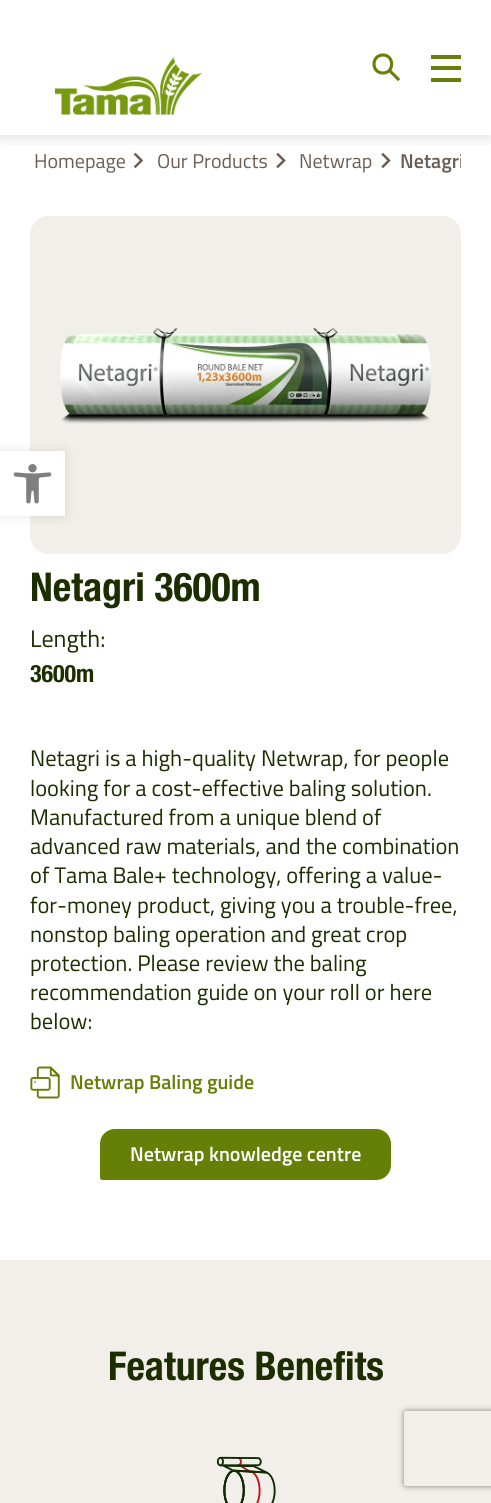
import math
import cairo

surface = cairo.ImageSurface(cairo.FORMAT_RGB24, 491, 1503)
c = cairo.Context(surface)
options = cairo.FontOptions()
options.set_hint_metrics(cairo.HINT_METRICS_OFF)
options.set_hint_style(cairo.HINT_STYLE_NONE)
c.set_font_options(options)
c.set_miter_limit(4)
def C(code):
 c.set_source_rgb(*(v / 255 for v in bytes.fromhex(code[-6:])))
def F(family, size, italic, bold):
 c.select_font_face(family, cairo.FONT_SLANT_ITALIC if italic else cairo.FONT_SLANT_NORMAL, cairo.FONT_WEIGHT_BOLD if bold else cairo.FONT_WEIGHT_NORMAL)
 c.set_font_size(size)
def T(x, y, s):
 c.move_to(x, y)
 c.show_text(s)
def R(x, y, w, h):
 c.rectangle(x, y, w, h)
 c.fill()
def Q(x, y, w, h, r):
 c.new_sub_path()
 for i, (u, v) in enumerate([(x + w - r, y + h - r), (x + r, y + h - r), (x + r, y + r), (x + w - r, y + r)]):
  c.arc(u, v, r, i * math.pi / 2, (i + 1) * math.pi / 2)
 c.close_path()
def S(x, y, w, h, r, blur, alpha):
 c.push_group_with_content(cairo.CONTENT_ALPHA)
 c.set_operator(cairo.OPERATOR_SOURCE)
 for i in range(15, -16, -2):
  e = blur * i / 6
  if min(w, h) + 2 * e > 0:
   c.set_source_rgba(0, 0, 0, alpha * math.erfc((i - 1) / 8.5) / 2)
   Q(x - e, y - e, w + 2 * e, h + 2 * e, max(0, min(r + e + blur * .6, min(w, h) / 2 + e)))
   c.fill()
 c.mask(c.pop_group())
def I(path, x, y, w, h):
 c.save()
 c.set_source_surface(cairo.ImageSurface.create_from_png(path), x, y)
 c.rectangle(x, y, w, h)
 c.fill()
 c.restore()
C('ffffff')
c.paint()
c.new_path()
c.move_to(135.5,166.5)
c.line_to(141.5,160.5)
c.line_to(135.5,154.5)
C('6b5e56')
c.set_line_width(2.5)
c.set_line_cap(cairo.LINE_CAP_SQUARE)
c.stroke()
c.new_path()
c.move_to(278,166.5)
c.line_to(284,160.5)
c.line_to(278,154.5)
c.stroke()
c.new_path()
c.move_to(383,166.5)
c.line_to(389,160.5)
c.line_to(383,154.5)
c.stroke()
c.save()
c.rectangle(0,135,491,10)
c.clip()
C('000000')
S(0,5,491,135,0,6,.1)
c.restore()
I('1.png',55,57,148,58)
c.new_path()
c.move_to(383,73)
c.curve_to(394.5,73,394.5,55,383,55)
c.curve_to(371,55,371,73,383,73)
c.close_path()
C('667f06')
c.set_line_width(3.1)
c.set_line_cap(cairo.LINE_CAP_ROUND)
c.set_line_join(cairo.LINE_JOIN_ROUND)
c.stroke()
c.new_path()
c.move_to(398,79)
c.line_to(390.5,71.5)
c.set_line_cap(cairo.LINE_CAP_SQUARE)
c.stroke()
R(431,55,30,4)
R(431,66,30,4)
R(431,78,30,4)
F('Titillium Web',20,0,0)
C('6b5e56')
T(34,168,'Homepage')
T(157,168,'Our Products')
T(299,168,'Netwrap')
c.save()
c.rectangle(30,135,431,51)
c.clip()
F('Titillium Web SemiBold',20,0,0)
T(400,168,'Netagri')
c.restore()
C('f2eee9')
Q(30,216,431,338,19)
c.fill()
I('2.png',60,328,372,96)
F('Helvetica Neue',39.75,0,1)
C('1c2d00')
T(30,601,'Netagri 3600m')
F('Titillium Web',24,0,0)
T(30,647,'Length:')
F('Helvetica Neue',24,0,1)
T(30,682,'3600m')
F('Titillium Web',22.5,0,0)
T(30,766,'Netagri is a high-quality Netwrap, for people')
T(30,796,'looking for a cost-effective baling solution.')
T(30,825,'Manufactured from a unique blend of')
T(30,854,'advanced raw materials, and the combination')
T(30,883,'of Tama Bale+ technology, offering a value-')
T(30,913,'for-money product, giving you a trouble-free,')
T(30,942,'nonstop baling operation and great crop')
T(30,971,'protection. Please review the baling')
T(30,1000,'recommendation guide on your roll or here')
T(30,1029,'below:')
I('3.png',30,1066,30,33)
F('Titillium Web SemiBold',20,0,0)
C('667f06')
T(70,1089,'Netwrap Baling guide')
c.new_path()
c.move_to(115,1129)
c.line_to(376,1129)
c.curve_to(384.5,1129,391,1135.5,391,1144)
c.line_to(391,1165)
c.curve_to(391,1173.5,384.5,1180,376,1180)
c.line_to(102.5,1180)
c.curve_to(101,1180,100,1179,100,1177.5)
c.line_to(100,1144)
c.curve_to(100,1135.5,106.5,1129,115,1129)
c.close_path()
c.fill()
C('ffffff')
T(130,1161,'Netwrap knowledge centre')
C('f2eee9')
R(0,1260,491,243)
F('Helvetica Neue',39.75,0,1)
C('1c2d00')
T(108,1380,'Features Benefits')
I('4.png',216,1456,60,47)
C('000000')
S(0,451,65,65,0,6,.1)
C('ffffff')
R(0,451,65,65)
I('5.png',13,464,39,40)
c.save()
c.set_fill_rule(cairo.FILL_RULE_EVEN_ODD)
c.new_path()
c.move_to(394,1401)
c.line_to(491,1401)
c.line_to(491,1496)
c.line_to(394,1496)
c.close_path()
c.move_to(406.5,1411)
c.line_to(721.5,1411)
c.curve_to(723,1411,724,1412,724,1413.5)
c.line_to(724,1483.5)
c.curve_to(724,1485,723,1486,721.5,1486)
c.line_to(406.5,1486)
c.curve_to(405,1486,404,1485,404,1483.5)
c.line_to(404,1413.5)
c.curve_to(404,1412,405,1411,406.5,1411)
c.close_path()
c.clip()
C('808080')
S(404,1411,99,75,2.5,3,1)
c.restore()
surface.write_to_png('o.png')
